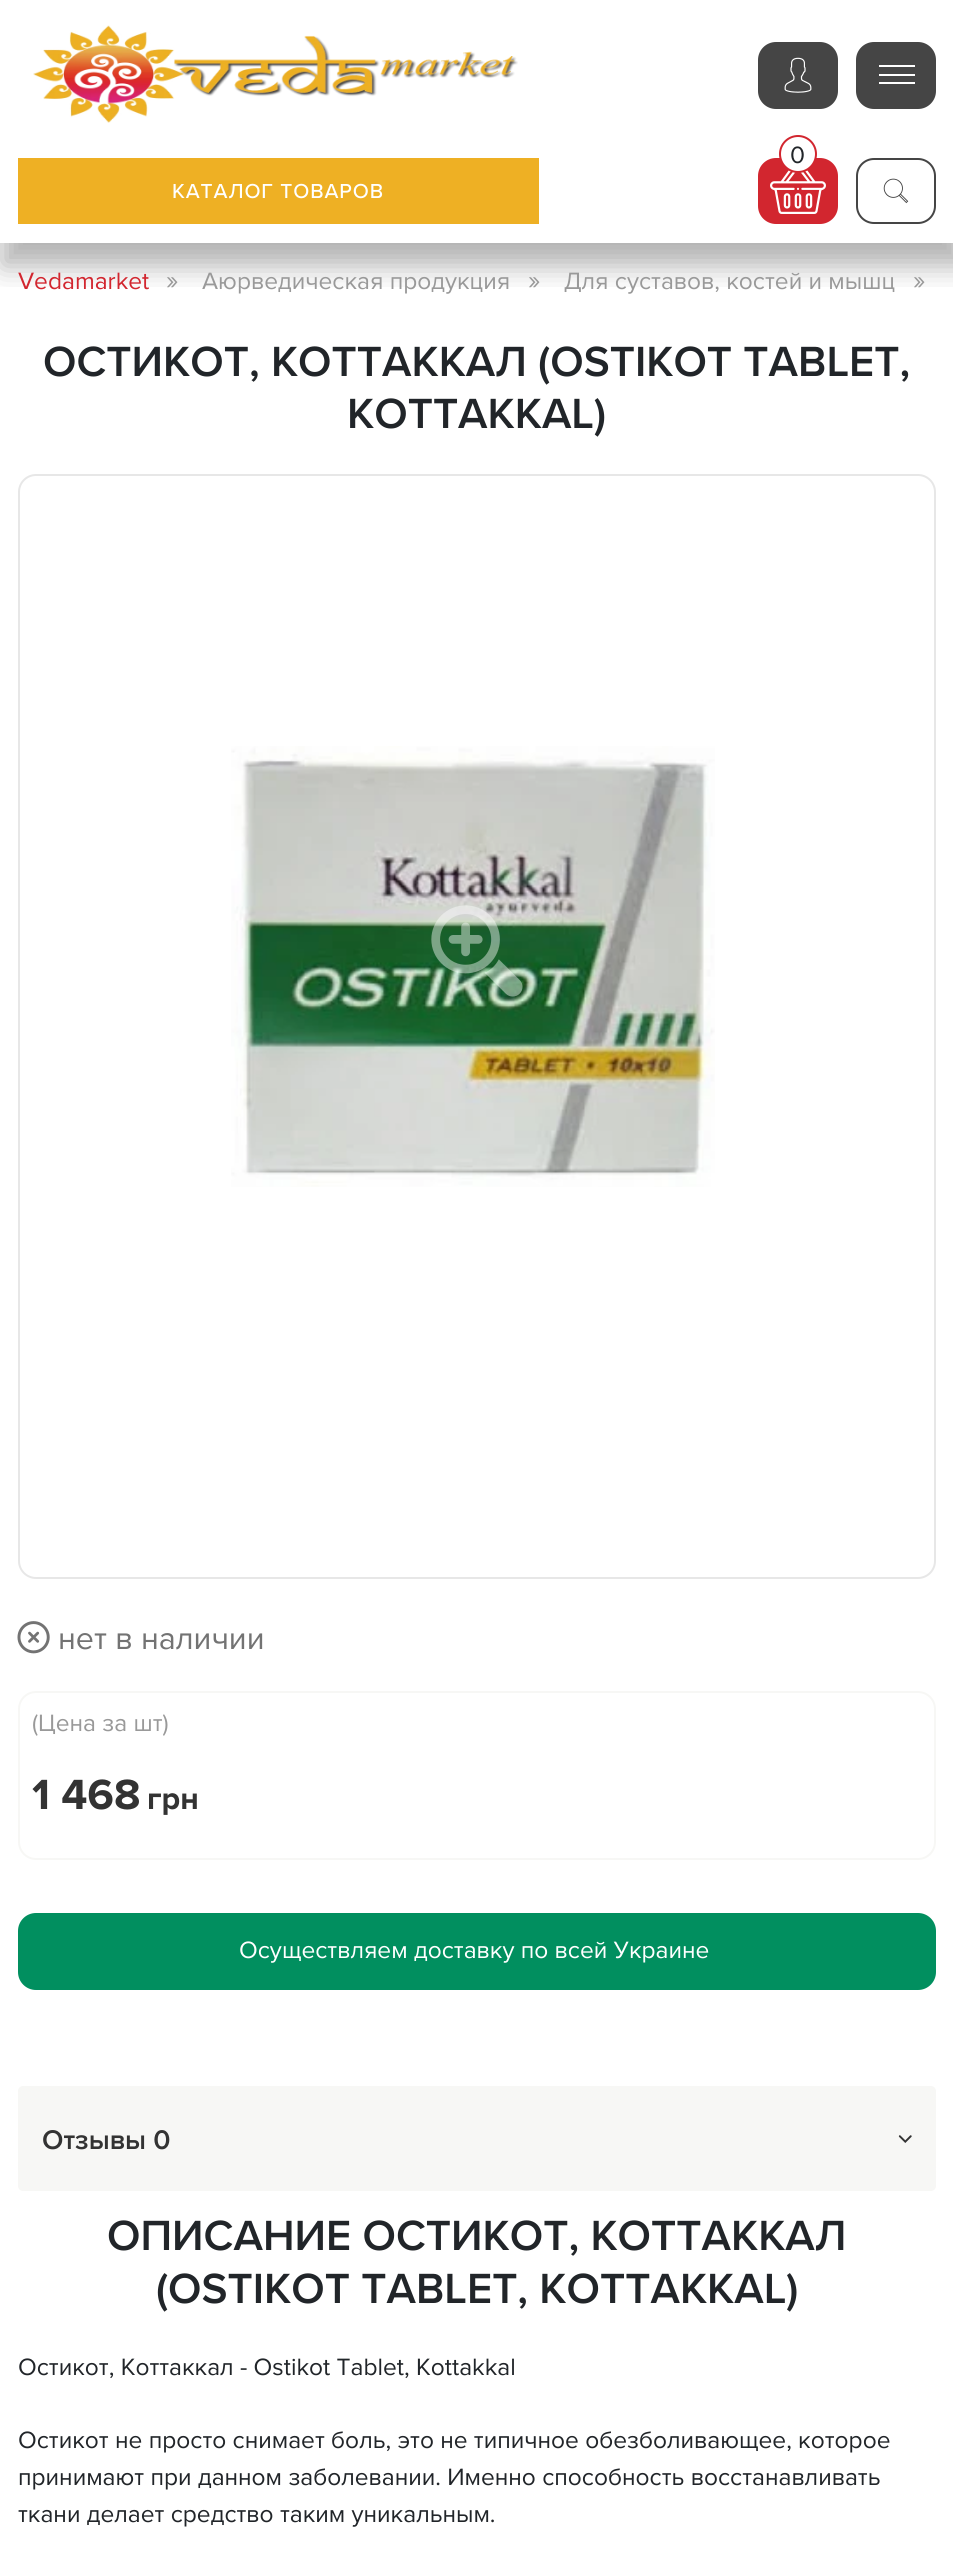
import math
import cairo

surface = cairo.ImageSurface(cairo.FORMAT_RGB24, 953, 2555)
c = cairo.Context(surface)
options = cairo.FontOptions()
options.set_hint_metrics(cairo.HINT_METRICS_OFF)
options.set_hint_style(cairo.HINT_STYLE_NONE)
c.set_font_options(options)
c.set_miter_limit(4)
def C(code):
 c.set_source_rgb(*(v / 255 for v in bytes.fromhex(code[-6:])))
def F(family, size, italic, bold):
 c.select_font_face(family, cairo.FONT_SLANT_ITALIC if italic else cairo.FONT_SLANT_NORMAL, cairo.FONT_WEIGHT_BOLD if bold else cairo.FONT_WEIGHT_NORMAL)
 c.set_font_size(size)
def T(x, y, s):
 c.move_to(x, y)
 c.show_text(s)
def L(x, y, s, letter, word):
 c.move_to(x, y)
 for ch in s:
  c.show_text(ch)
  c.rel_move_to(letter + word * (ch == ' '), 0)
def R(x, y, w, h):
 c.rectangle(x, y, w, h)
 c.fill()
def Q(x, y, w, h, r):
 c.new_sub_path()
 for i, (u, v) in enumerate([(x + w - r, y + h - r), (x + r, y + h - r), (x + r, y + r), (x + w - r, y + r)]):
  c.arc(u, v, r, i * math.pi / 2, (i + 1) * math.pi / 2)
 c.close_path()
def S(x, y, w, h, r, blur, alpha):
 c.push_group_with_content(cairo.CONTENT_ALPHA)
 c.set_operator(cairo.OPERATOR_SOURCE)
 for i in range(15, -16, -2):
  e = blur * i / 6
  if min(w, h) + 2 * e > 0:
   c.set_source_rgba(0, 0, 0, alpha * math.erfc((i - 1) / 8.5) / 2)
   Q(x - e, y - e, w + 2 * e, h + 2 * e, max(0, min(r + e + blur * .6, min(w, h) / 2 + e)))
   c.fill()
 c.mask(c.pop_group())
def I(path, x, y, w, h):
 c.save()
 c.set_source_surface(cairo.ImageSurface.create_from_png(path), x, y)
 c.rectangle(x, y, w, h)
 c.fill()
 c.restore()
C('ffffff')
c.paint()
c.save()
c.rectangle(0,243,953,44)
c.clip()
C('000000')
S(2,16,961,250,0,14,.3)
c.restore()
I('1.png',33,25,485,98)
C('454545')
Q(758,42,80,67,18)
c.fill()
I('2.png',784,57,28,36)
Q(856,42,80,67,18)
c.fill()
C('ffffff')
R(879,65,36,2)
R(879,74,36,2)
R(879,82,36,2)
C('d2262f')
Q(758,158,80,66,18)
c.fill()
I('3.png',770,170,56,44)
C('ffffff')
c.arc(798,154,18,0,2 * math.pi)
c.fill_preserve()
C('d2262f')
c.stroke()
F('Proxima Nova',24.5,0,0)
C('212529')
T(790,163,'0')
C('eeb024')
R(18,158,521,66)
F('Proxima Nova Medium',21,0,0)
C('ffffff')
L(172,198,'КАТАЛОГ ТОВАРОВ',.9,0)
Q(857,159,78,64,17)
C('454545')
c.stroke()
I('4.png',883,178,26,26)
F('Proxima Nova',24.5,0,0)
C('d2262f')
T(18,289,'Vedamarket')
F('Proxima Nova',28,0,0)
C('999999')
T(166,289,'»')
F('Proxima Nova',24.5,0,0)
T(202,289,'Аюрведическая продукция')
F('Proxima Nova',28,0,0)
T(528,289,'»')
F('Proxima Nova',24.5,0,0)
T(564,289,'Для суставов, костей и мышц')
F('Proxima Nova',28,0,0)
T(913,289,'»')
F('Proxima Nova SemiBold',43.75,0,0)
C('212529')
T(43,376,'ОСТИКОТ, КОТТАККАЛ (OSTIKOT TABLET,')
T(347,428,'KOTTAKKAL)')
Q(19,475,916,1103,17)
C('e7e7e7')
c.stroke()
I('5.png',231,746,484,441)
I('6.png',431,905,92,92)
I('7.png',17,1621,33,33)
F('Proxima Nova',32.25,0,0)
C('737373')
T(58,1649,'нет в наличии')
Q(19,1692,916,167,17)
C('f7f7f5')
c.stroke()
F('Proxima Nova',24.5,0,0)
C('999999')
T(32,1731,'(Цена за шт)')
F('Proxima Nova',43.75,0,1)
C('333333')
T(32,1809,'1 468')
F('Proxima Nova',32,0,1)
T(147,1809,'грн')
C('018f5f')
Q(18,1913,918,77,18)
c.fill()
F('Proxima Nova',24.5,0,0)
C('ffffff')
T(239,1958,'Осуществляем доставку по всей Украине')
C('f7f7f5')
Q(18,2086,918,105,5)
c.fill()
F('Proxima Nova SemiBold',28,0,0)
C('333333')
T(42,2149,'Отзывы 0')
I('8.png',898,2135,14,8)
F('Proxima Nova SemiBold',43.75,0,0)
C('212529')
T(107,2250,'ОПИСАНИЕ ОСТИКОТ, КОТТАККАЛ')
T(156,2303,'(OSTIKOT TABLET, KOTTAKKAL)')
F('Proxima Nova',24.5,0,0)
T(18,2375,'Остикот, Коттаккал - Ostikot Tablet, Kottakkal')
T(18,2448,'Остикот не просто снимает боль, это не типичное обезболивающее, которое')
T(18,2485,'принимают при данном заболевании. Именно способность восстанавливать')
T(18,2522,'ткани делает средство таким уникальным.')
surface.write_to_png('o.png')
